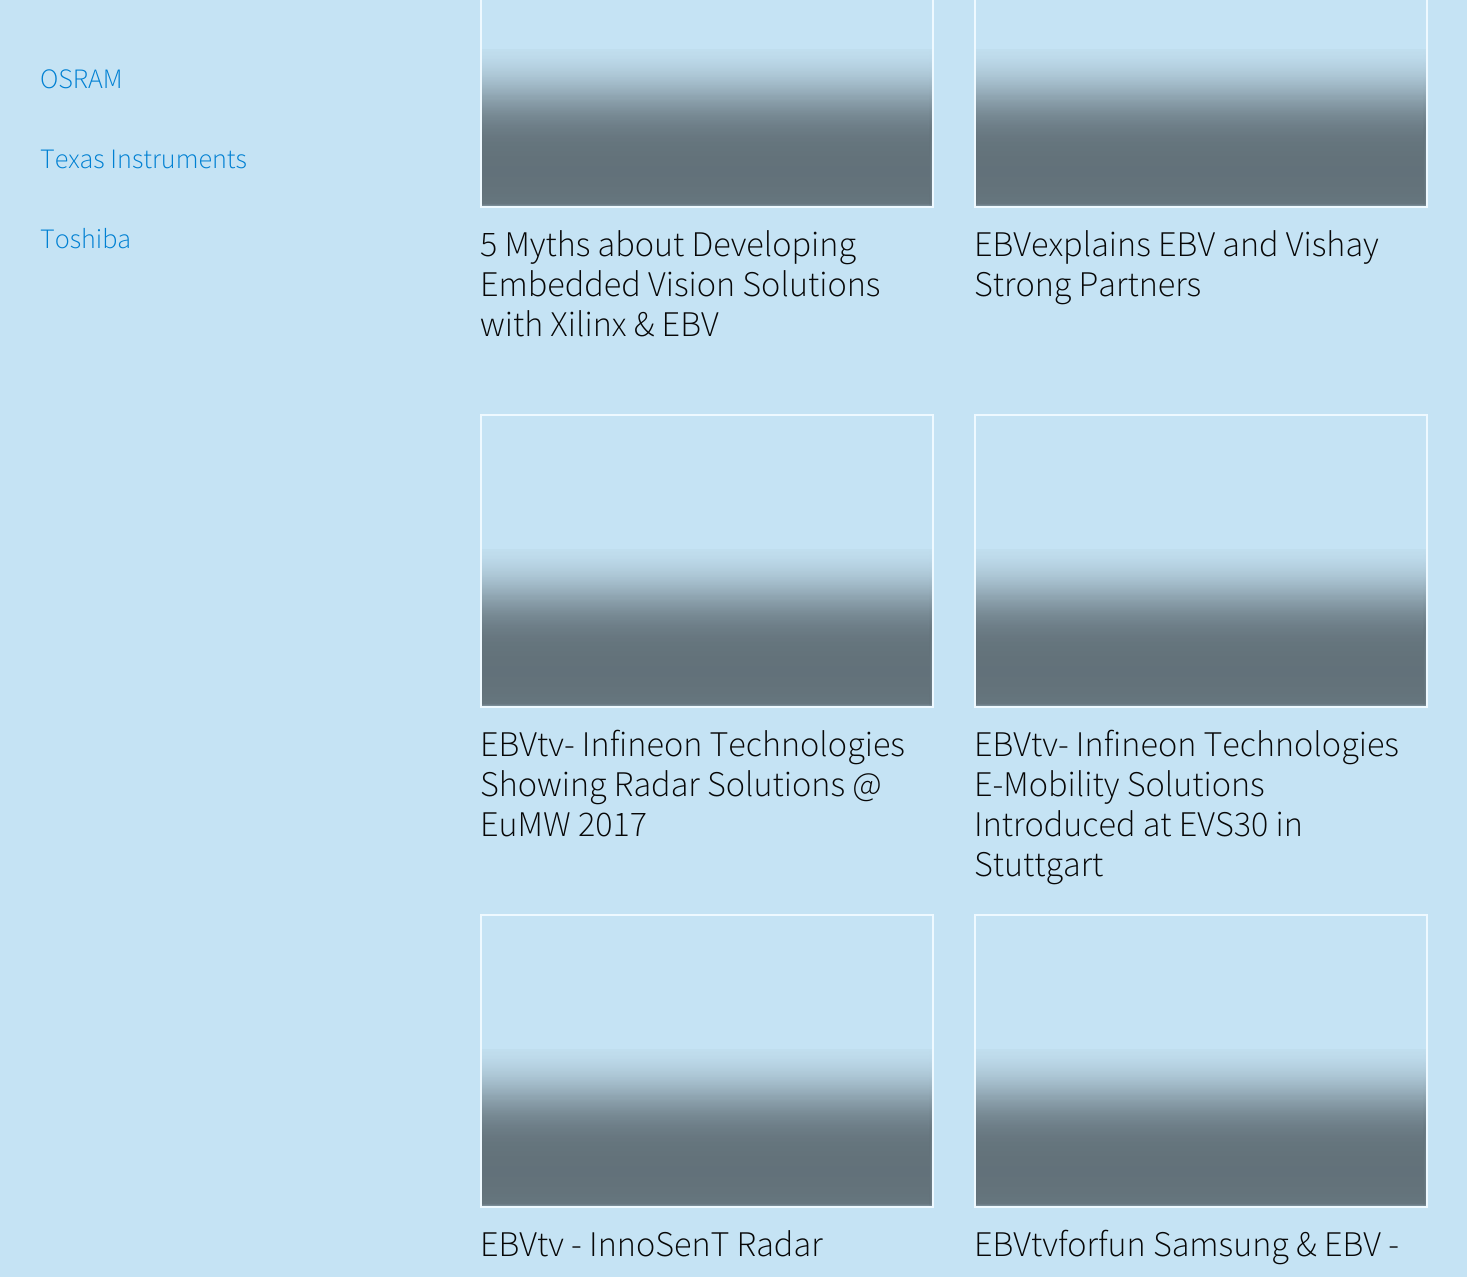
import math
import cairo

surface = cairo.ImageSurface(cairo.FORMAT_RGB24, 1467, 1277)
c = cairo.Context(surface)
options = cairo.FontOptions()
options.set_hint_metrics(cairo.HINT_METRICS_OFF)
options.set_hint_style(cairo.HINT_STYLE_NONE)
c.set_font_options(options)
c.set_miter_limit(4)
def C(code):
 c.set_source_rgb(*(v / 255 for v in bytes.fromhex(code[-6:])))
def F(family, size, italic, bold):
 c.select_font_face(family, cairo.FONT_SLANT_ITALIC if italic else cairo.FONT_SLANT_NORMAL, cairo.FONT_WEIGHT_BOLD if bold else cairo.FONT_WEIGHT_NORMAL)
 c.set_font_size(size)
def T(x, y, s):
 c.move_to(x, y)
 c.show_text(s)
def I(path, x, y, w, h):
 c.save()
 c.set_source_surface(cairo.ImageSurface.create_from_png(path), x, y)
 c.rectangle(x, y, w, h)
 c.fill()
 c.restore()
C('c5e3f4')
c.paint()
F('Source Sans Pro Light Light',28,0,0)
C('0080d2')
T(40,88,'OSRAM')
T(40,168,'Texas Instruments')
T(40,248,'Toshiba')
c.rectangle(481,-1,452,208)
C('eef9ff')
c.stroke()
I('1.png',482,49,450,157)
F('Source Sans Pro Light Light',36,0,0)
C('070707')
T(480,256,'5 Myths about Developing')
T(480,296,'Embedded Vision Solutions')
T(480,336,'with Xilinx & EBV')
c.rectangle(975,-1,452,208)
C('eef9ff')
c.stroke()
I('1.png',976,49,450,157)
C('070707')
T(974,256,'EBVexplains EBV and Vishay')
T(974,296,'Strong Partners')
c.rectangle(481,415,452,292)
C('eef9ff')
c.stroke()
I('1.png',482,549,450,157)
C('070707')
T(480,756,'EBVtv- Infineon Technologies')
T(480,796,'Showing Radar Solutions @')
T(480,836,'EuMW 2017')
c.rectangle(975,415,452,292)
C('eef9ff')
c.stroke()
I('1.png',976,549,450,157)
C('070707')
T(974,756,'EBVtv- Infineon Technologies')
T(974,796,'E-Mobility Solutions')
T(974,836,'Introduced at EVS30 in')
T(974,876,'Stuttgart')
c.rectangle(481,915,452,292)
C('eef9ff')
c.stroke()
I('1.png',482,1049,450,157)
C('070707')
T(480,1256,'EBVtv - InnoSenT Radar')
c.rectangle(975,915,452,292)
C('eef9ff')
c.stroke()
I('1.png',976,1049,450,157)
C('070707')
T(974,1256,'EBVtvforfun Samsung & EBV -')
surface.write_to_png('o.png')
